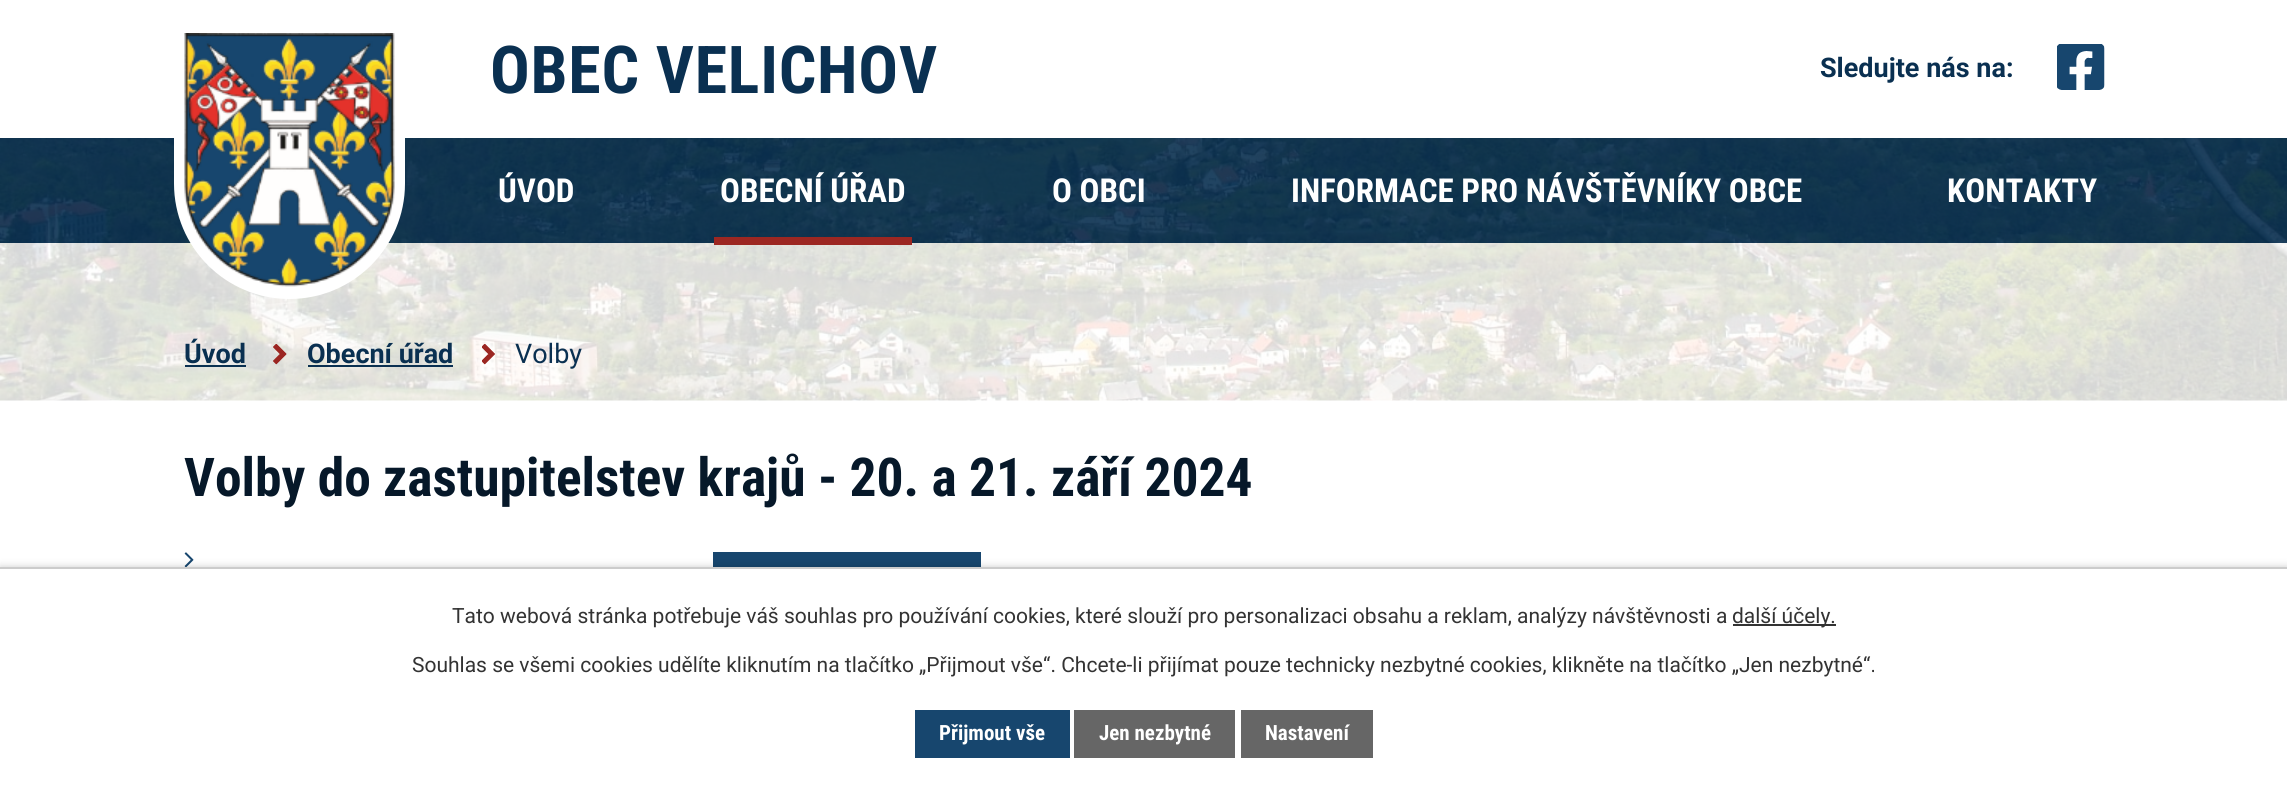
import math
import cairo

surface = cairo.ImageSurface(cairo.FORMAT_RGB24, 2287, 786)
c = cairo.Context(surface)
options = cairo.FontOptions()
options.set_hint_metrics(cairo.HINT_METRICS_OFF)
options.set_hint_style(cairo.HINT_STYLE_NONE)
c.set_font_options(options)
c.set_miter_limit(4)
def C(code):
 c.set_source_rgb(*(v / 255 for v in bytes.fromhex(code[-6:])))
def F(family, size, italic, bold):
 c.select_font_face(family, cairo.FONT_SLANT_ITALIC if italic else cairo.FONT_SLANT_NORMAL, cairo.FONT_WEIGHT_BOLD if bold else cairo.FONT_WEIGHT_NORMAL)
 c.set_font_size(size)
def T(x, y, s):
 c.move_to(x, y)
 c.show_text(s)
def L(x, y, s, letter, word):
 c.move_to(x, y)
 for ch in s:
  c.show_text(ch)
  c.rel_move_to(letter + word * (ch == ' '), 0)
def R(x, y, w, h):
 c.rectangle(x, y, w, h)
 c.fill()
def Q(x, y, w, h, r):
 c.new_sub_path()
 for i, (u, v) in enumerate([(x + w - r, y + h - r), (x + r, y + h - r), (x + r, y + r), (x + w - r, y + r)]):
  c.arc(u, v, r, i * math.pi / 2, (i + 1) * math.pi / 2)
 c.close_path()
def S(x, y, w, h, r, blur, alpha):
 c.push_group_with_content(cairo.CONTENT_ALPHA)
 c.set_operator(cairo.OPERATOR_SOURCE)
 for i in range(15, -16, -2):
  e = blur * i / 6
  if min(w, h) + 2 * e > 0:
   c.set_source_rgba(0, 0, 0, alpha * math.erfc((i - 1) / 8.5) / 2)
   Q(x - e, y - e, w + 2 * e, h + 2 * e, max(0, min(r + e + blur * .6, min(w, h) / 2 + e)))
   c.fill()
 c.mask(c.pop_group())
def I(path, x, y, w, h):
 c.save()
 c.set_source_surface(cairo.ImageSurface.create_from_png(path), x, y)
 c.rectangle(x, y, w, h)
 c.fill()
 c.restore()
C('ffffff')
c.paint()
I('3.png',0,138,2287,263)
c.set_source_rgba(0.039,0.188,0.318,0.9)
R(0,138,2287,105)
c.set_source_rgba(1,1,1,0.83)
R(0,243,2287,158)
C('ffffff')
Q(174,15,231,284,115.5)
c.fill()
I('1.png',184,33,211,254)
F('Roboto Condensed',66,0,1)
C('0a3051')
L(490,93,'OBEC VELICHOV',.75,0)
F('Roboto',27,0,1)
T(1820,77,'Sledujte nás na:')
I('2.png',2057,44,48,46)
F('Roboto Condensed',33,0,1)
C('ffffff')
T(498,202,'ÚVOD')
T(720,202,'OBECNÍ ÚŘAD')
C('9c2722')
R(714,237,198,8)
C('ffffff')
T(1052,202,'O OBCI')
T(1291,202,'INFORMACE PRO NÁVŠTĚVNÍKY OBCE')
T(1947,202,'KONTAKTY')
F('Roboto',27,0,1)
C('0a3051')
T(184,363,'Úvod')
R(185,365,61,2)
I('4.png',273,344,14,21)
T(307,363,'Obecní úřad')
R(308,365,145,2)
I('5.png',482,344,13,21)
F('Roboto',27,0,0)
T(515,363,'Volby')
F('Roboto Condensed',53.5,0,1)
C('061829')
T(184,496,'Volby do zastupitelstev krajů - 20. a 21. září 2024')
I('6.png',184,552,10,15)
C('17466e')
R(713,552,268,15)
C('000000')
S(0,567,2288,219,0,4,.2)
C('ffffff')
R(0,569,2287,217)
C('cccccc')
R(0,567,2287,2)
F('Roboto',21,0,0)
C('333333')
T(452,623,'Tato webová stránka potřebuje váš souhlas pro používání cookies, které slouží pro personalizaci obsahu a reklam, analýzy návštěvnosti a')
R(1733,624,103,2)
T(1732,623,'další účely.')
T(412,672,'Souhlas se všemi cookies udělíte kliknutím na tlačítko „Přijmout vše“. Chcete-li přijímat pouze technicky nezbytné cookies, klikněte na tlačítko „Jen nezbytné“.')
C('17466e')
R(915,710,155,48)
F('Roboto Condensed',21,0,1)
C('ffffff')
T(939,740,'Přijmout vše')
C('666666')
R(1074,710,161,48)
C('ffffff')
T(1099,740,'Jen nezbytné')
C('666666')
R(1241,710,132,48)
C('ffffff')
T(1265,740,'Nastavení')
surface.write_to_png('o.png')
